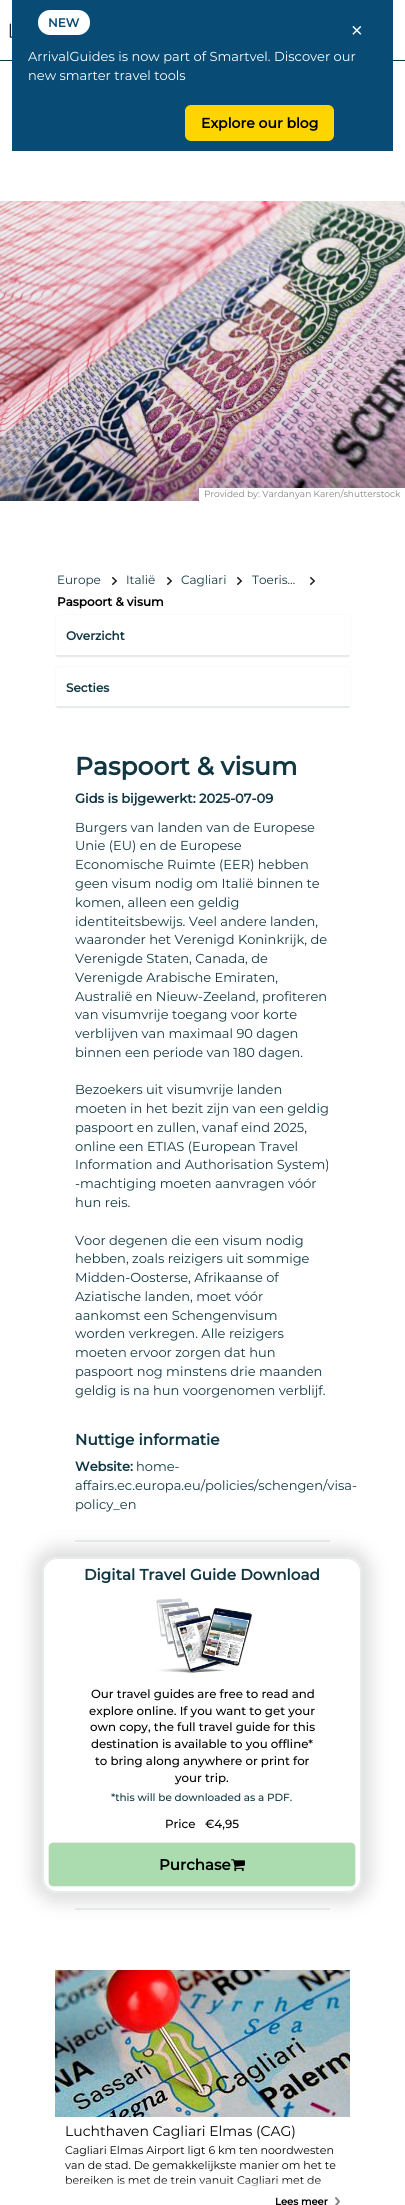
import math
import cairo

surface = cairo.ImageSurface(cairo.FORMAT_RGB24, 405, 2205)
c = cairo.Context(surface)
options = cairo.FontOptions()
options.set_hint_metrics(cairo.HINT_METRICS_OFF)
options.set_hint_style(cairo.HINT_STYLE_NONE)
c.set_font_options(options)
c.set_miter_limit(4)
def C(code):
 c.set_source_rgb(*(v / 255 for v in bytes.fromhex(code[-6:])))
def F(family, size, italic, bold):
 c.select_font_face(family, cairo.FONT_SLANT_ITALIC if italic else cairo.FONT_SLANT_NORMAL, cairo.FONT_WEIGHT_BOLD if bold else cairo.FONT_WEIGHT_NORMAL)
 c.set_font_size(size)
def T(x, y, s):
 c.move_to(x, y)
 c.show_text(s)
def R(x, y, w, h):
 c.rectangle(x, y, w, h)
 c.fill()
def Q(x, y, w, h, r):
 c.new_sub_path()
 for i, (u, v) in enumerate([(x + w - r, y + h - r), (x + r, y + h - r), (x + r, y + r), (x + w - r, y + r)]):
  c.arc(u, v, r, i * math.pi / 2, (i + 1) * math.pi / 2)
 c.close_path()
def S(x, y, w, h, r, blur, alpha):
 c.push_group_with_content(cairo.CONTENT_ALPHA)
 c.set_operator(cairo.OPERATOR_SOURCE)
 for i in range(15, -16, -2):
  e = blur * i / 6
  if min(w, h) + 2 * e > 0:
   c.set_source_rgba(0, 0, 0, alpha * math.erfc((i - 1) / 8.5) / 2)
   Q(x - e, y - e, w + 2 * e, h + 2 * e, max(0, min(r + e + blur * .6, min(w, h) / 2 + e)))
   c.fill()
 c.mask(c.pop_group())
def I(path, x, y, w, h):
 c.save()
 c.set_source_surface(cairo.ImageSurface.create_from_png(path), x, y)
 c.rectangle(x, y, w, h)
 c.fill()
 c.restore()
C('ffffff')
c.paint()
C('113743')
R(0,60,405,1)
C('084c75')
R(12,0,381,151)
C('ffffff')
Q(38,10,52,25,12)
c.fill()
F('Montserrat',12,0,1)
C('084c75')
T(48,27,'NEW')
F('Liberation Sans',20,0,0)
C('ffffff')
T(351,37,'×')
F('Montserrat',13,0,0)
T(28,61,'ArrivalGuides is now part of Smartvel. Discover our')
T(28,80,'new smarter travel tools')
C('ffd500')
Q(185,105,149,36,6)
c.fill()
F('Montserrat',14,0,1)
C('000000')
T(201,128,'Explore our blog')
I('1.png',9,23,3,15)
I('2.png',0,201,405,300)
C('ffffff')
R(199,488,206,13)
F('Montserrat',9,0,0)
C('808080')
T(204,497,'Provided by: Vardanyan Karen/shutterstock')
I('3.png',112,577,5,8)
F('Montserrat',12,0,0)
C('113743')
T(57,584,'Europe')
I('3.png',167,577,5,8)
T(126,584,'Italië')
I('3.png',237,577,5,8)
T(181,584,'Cagliari')
I('3.png',310,577,5,8)
T(252,584,'Toeris…')
F('Montserrat',12,0,1)
C('000000')
T(57,606,'Paspoort & visum')
C('032e5c')
S(56,615,294,42,2,.5,.1)
C('ffffff')
Q(56,615,294,42,2)
c.fill()
C('e7ebec')
c.new_path()
c.move_to(56,655)
c.line_to(350,655)
c.curve_to(350,656,349,657,348,657)
c.line_to(58,657)
c.curve_to(57,657,56,656,56,655)
c.close_path()
c.fill()
C('113743')
T(66,640,'Overzicht')
C('032e5c')
S(56,667,294,41,2,.5,.1)
C('ffffff')
Q(56,667,294,41,2)
c.fill()
C('e7ebec')
c.new_path()
c.move_to(56,706)
c.line_to(350,706)
c.curve_to(350,707,349,708,348,708)
c.line_to(58,708)
c.curve_to(57,708,56,707,56,706)
c.close_path()
c.fill()
C('113743')
T(66,692,'Secties')
F('Montserrat',25,0,1)
T(75,775,'Paspoort & visum')
F('Montserrat',13,0,1)
T(75,803,'Gids is bijgewerkt: 2025-07-09')
F('Montserrat',13,0,0)
T(75,832,'Burgers van landen van de Europese')
T(75,850,'Unie (EU) en de Europese')
T(75,869,'Economische Ruimte (EER) hebben')
T(75,888,'geen visum nodig om Italië binnen te')
T(75,907,'komen, alleen een geldig')
T(75,926,'identiteitsbewijs. Veel andere landen,')
T(75,944,'waaronder het Verenigd Koninkrijk, de')
T(75,963,'Verenigde Staten, Canada, de')
T(75,982,'Verenigde Arabische Emiraten,')
T(75,1001,'Australië en Nieuw-Zeeland, profiteren')
T(75,1019,'van visumvrije toegang voor korte')
T(75,1038,'verblijven van maximaal 90 dagen')
T(75,1057,'binnen een periode van 180 dagen.')
T(75,1094,'Bezoekers uit visumvrije landen')
T(75,1113,'moeten in het bezit zijn van een geldig')
T(75,1132,'paspoort en zullen, vanaf eind 2025,')
T(75,1151,'online een ETIAS (European Travel')
T(75,1169,'Information and Authorisation System)')
T(75,1188,'-machtiging moeten aanvragen vóór')
T(75,1207,'hun reis.')
T(75,1245,'Voor degenen die een visum nodig')
T(75,1263,'hebben, zoals reizigers uit sommige')
T(75,1282,'Midden-Oosterse, Afrikaanse of')
T(75,1301,'Aziatische landen, moet vóór')
T(75,1320,'aankomst een Schengenvisum')
T(75,1338,'worden verkregen. Alle reizigers')
T(75,1357,'moeten ervoor zorgen dat hun')
T(75,1376,'paspoort nog minstens drie maanden')
T(75,1395,'geldig is na hun voorgenomen verblijf.')
F('Montserrat',15.25,0,1)
T(75,1445,'Nuttige informatie')
F('Montserrat',13,0,1)
T(75,1471,'Website:')
F('Montserrat',13,0,0)
T(136,1471,'home-')
T(75,1490,'affairs.ec.europa.eu/policies/schengen/visa-')
T(75,1509,'policy_en')
C('e7ebec')
R(75,1540,255,2)
R(75,1908,255,2)
c.save()
c.set_fill_rule(cairo.FILL_RULE_EVEN_ODD)
c.new_path()
c.move_to(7,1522)
c.line_to(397,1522)
c.line_to(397,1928)
c.line_to(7,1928)
c.close_path()
c.move_to(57,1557)
c.line_to(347,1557)
c.curve_to(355.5,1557,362,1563.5,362,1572)
c.line_to(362,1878)
c.curve_to(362,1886.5,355.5,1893,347,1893)
c.line_to(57,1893)
c.curve_to(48.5,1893,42,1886.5,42,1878)
c.line_to(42,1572)
c.curve_to(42,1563.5,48.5,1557,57,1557)
c.close_path()
c.clip()
C('e1e0e0')
S(32,1547,340,356,25,8,1)
c.restore()
Q(43,1558,318,334,14)
c.stroke()
F('Montserrat',15.25,0,1)
C('113743')
T(84,1580,'Digital Travel Guide Download')
I('4.png',156,1598,96,75)
F('Montserrat Medium',11.75,0,0)
C('000000')
T(91,1698,'Our travel guides are free to read and')
T(89,1715,'explore online. If you want to get your')
T(90,1731,'own copy, the full travel guide for this')
T(91,1748,'destination is available to you offline*')
T(95,1765,'to bring along anywhere or print for')
T(175,1782,'your trip.')
F('Montserrat Medium',10.4,0,0)
C('113743')
T(111,1801,'*this will be downloaded as a PDF.')
F('Montserrat Medium',11.75,0,0)
C('000000')
T(165,1828,'Price')
T(205,1828,'€4,95')
C('000000')
S(49,1843,306,43,4,.5,.3)
C('abdcaf')
Q(49,1843,306,43,4)
c.fill()
F('Montserrat',15,0,1)
C('000000')
T(159,1870,'Purchase')
I('5.png',231,1859,14,13)
I('6.png',55,1970,295,147)
F('Montserrat',14,0,0)
T(65,2136,'Luchthaven Cagliari Elmas (CAG)')
F('Montserrat',11,0,0)
T(65,2154,'Cagliari Elmas Airport ligt 6 km ten noordwesten')
T(65,2169,'van de stad. De gemakkelijkste manier om het te')
T(65,2184,'bereiken is met de trein vanuit Cagliari met de')
I('7.png',335,2197,5,8)
gradient = cairo.LinearGradient(198,2180,198,2190)
gradient.add_color_stop_rgba(0,1,1,1,0)
gradient.add_color_stop_rgba(1,1,1,1,1)
c.set_source(gradient)
R(66,2180,255,7)
F('Montserrat',10,0,1)
C('000000')
T(275,2205,'Lees meer')
surface.write_to_png('o.png')
